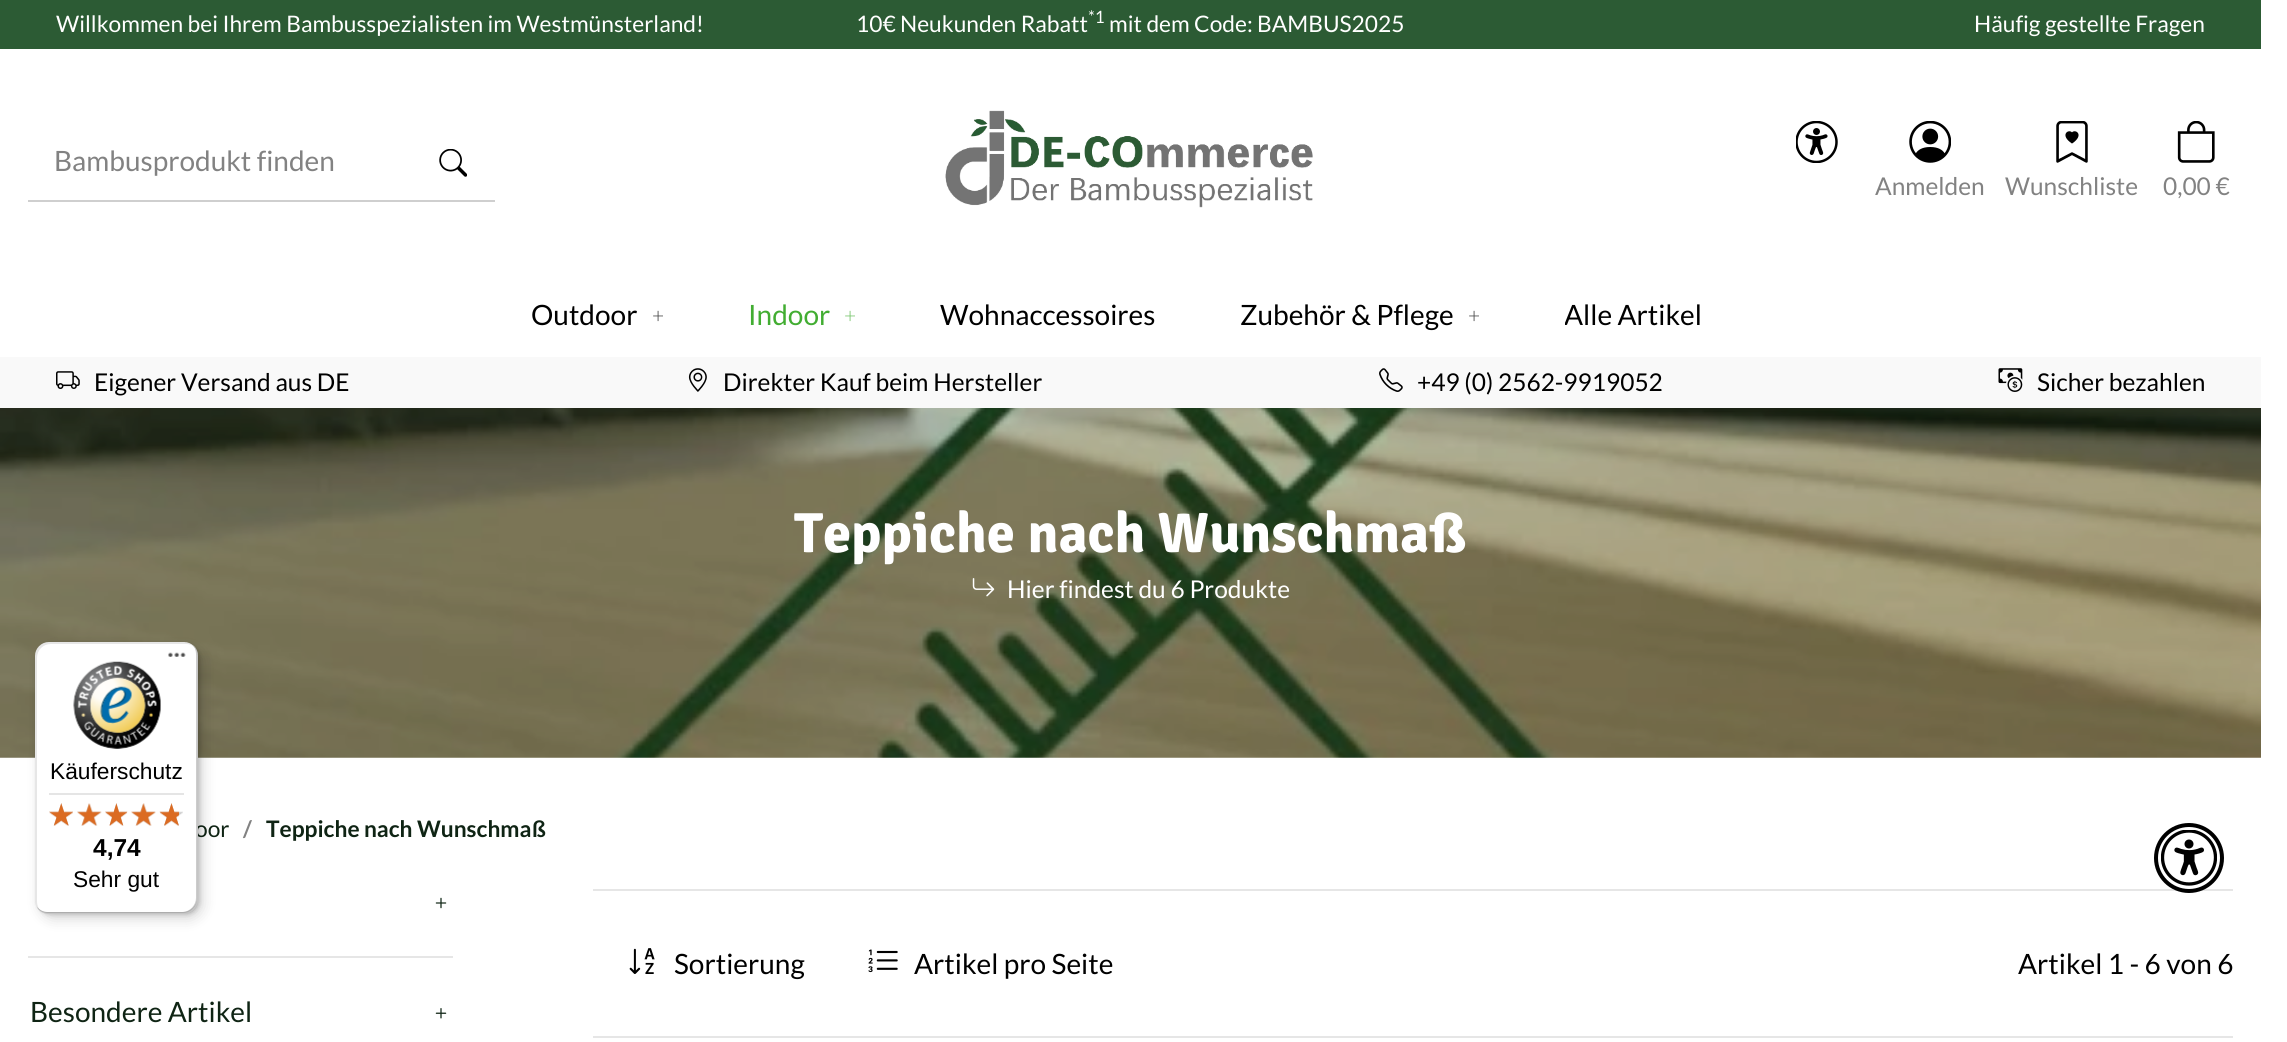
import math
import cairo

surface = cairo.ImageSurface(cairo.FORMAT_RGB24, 2287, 1042)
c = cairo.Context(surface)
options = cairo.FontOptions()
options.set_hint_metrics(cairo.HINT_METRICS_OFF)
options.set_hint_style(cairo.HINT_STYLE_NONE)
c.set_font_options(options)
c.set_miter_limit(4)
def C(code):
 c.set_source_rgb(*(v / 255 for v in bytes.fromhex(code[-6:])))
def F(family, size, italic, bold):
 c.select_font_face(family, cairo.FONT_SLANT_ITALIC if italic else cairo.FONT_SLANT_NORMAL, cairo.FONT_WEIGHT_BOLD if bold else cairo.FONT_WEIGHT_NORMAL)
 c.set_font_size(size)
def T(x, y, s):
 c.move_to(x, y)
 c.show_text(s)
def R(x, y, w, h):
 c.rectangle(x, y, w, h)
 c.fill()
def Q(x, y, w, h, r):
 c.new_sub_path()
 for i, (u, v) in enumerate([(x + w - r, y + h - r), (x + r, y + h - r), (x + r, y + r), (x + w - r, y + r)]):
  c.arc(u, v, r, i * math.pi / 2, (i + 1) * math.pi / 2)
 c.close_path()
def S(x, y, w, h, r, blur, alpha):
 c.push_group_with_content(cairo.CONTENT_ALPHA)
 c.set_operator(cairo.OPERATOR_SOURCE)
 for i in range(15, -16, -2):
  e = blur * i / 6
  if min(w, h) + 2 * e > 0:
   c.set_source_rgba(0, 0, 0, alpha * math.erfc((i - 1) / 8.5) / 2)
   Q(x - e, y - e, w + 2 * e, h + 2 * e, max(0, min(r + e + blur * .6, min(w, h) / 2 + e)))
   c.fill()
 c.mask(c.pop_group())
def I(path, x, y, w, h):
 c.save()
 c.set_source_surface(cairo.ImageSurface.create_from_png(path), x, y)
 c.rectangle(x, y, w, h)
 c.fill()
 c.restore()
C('ffffff')
c.paint()
C('2c5b34')
R(0,0,2261,49)
F('Lato',22.75,0,0)
C('ffffff')
T(56,32,'Willkommen bei Ihrem Bambusspezialisten im Westmünsterland!')
T(856,32,'10€ Neukunden Rabatt')
F('Lato',17,0,0)
T(1088,23,'*1')
F('Lato',22.75,0,0)
T(1109,32,'mit dem Code: BAMBUS2025')
T(1974,32,'Häufig gestellte Fragen')
C('cfcfcf')
R(28,200,467,2)
F('Lato',28,0,0)
C('828282')
T(54,171,'Bambusprodukt finden')
I('1.png',439,149,28,28)
I('2.png',945,110,368,98)
I('3.png',1796,121,42,42)
I('4.png',1909,121,42,42)
F('Lato',24.5,0,0)
T(1875,195,'Anmelden')
I('5.png',2056,121,32,42)
T(2005,195,'Wunschliste')
I('6.png',2177,121,38,42)
T(2163,195,'0,00 €')
F('Lato',28,0,0)
C('000000')
T(531,325,'Outdoor')
F('Lato Light',21,0,0)
C('404040')
T(652,323,'+')
F('Lato',28,0,0)
C('42ad32')
T(748,325,'Indoor')
F('Lato Light',21,0,0)
C('71c265')
T(844,323,'+')
F('Lato',28,0,0)
C('000000')
T(940,325,'Wohnaccessoires')
T(1240,325,'Zubehör & Pflege')
F('Lato Light',21,0,0)
C('404040')
T(1468,323,'+')
c.save()
c.rectangle(1565,294,136,42)
c.clip()
F('Lato',28,0,0)
C('000000')
T(1564,325,'Alle Artikel')
c.restore()
C('f9f9f9')
R(0,357,2261,51)
I('7.png',56,371,24,18)
F('Lato',24.5,0,0)
C('000000')
T(94,391,'Eigener Versand aus DE')
I('8.png',688,368,19,24)
T(723,391,'Direkter Kauf beim Hersteller')
I('9.png',1379,368,24,24)
T(1417,391,'+49 (0) 2562-9919052')
I('10.png',1998,368,25,24)
T(2037,391,'Sicher bezahlen')
I('11.png',0,408,2261,350)
F('Signika',56.75,0,1)
C('ffffff')
T(794,552,'Teppiche nach Wunschmaß')
I('12.png',972,578,23,19)
F('Lato',24.5,0,0)
T(1007,598,'Hier findest du 6 Produkte')
F('Lato',22.75,0,0)
C('0f2414')
T(195,837,'oor')
F('Lato',22.75,0,1)
C('828282')
T(243,837,'/')
C('0f2414')
T(266,837,'Teppiche nach Wunschmaß')
C('e6e6e6')
R(593,889,1640,2)
I('13.png',629,948,26,26)
F('Lato',28,0,0)
C('000000')
T(674,974,'Sortierung')
I('14.png',868,949,30,24)
T(914,974,'Artikel pro Seite')
T(2018,974,'Artikel 1 - 6 von 6')
C('e6e6e6')
R(593,1036,1640,2)
I('15.png',435,897,12,12)
R(28,956,425,2)
C('0f2414')
T(30,1022,'Besondere Artikel')
I('16.png',435,1008,12,11)
C('000000')
S(40,648,163,271,14,7,.15)
S(37,644,163,271,14,2,.15)
C('ffffff')
Q(35,642,163,272,14)
c.fill()
c.set_source_rgba(0,0,0,0.1)
c.new_path()
c.move_to(51,644)
c.line_to(186,644)
c.curve_to(189,644,193,645,195,648)
c.curve_to(193,644,189,642,184,642)
c.line_to(49,642)
c.curve_to(41,642,35,648,35,656)
c.line_to(35,900)
c.curve_to(35,906,38,910,43,913)
c.curve_to(39,910,37,906,37,901)
c.line_to(37,658)
c.curve_to(37,650,43,644,51,644)
c.close_path()
c.fill()
c.set_source_rgba(0,0,0,0.2)
c.new_path()
c.move_to(37,907)
c.curve_to(39,911,44,914,49,914)
c.line_to(184,914)
c.curve_to(192,914,198,908,198,900)
c.line_to(198,656)
c.curve_to(198,651,196,647,192,645)
c.curve_to(195,647,196,651,196,654)
c.line_to(196,898)
c.curve_to(196,905,190,912,182,912)
c.line_to(47,912)
c.curve_to(43,912,40,910,37,907)
c.close_path()
c.fill()
c.set_source_rgba(0.196,0.196,0.196,0.2)
c.new_path()
c.move_to(36,906)
c.curve_to(39,911,43,914,49,914)
c.line_to(184,914)
c.curve_to(192,914,198,908,198,900)
c.line_to(198,656)
c.curve_to(198,651,196,647,192,645)
c.curve_to(195,647,197,651,197,655)
c.line_to(197,898)
c.curve_to(197,906,190,912,183,912)
c.line_to(48,912)
c.curve_to(43,912,39,910,36,906)
c.close_path()
c.fill()
c.set_source_rgba(1,1,1,0.3)
c.new_path()
c.move_to(38,908)
c.curve_to(40,912,44,914,49,914)
c.line_to(184,914)
c.curve_to(192,914,198,908,198,900)
c.line_to(198,656)
c.curve_to(198,651,196,647,193,645)
c.curve_to(195,648,197,651,197,655)
c.line_to(197,899)
c.curve_to(197,906,191,913,183,913)
c.line_to(48,913)
c.curve_to(44,913,40,911,38,908)
c.close_path()
c.fill()
I('17.png',168,652,18,5)
I('18.png',73,661,88,88)
F('Liberation Sans',22.75,0,0)
C('000000')
T(50,779,'Käuferschutz')
C('e5e5e5')
R(49,793,135,2)
I('19.png',49,803,24,23)
I('20.png',77,803,25,23)
I('21.png',105,803,22,23)
I('22.png',131,803,25,23)
I('23.png',160,803,23,23)
I('24.png',49,803,24,23)
I('25.png',77,803,25,23)
I('26.png',105,803,23,23)
I('27.png',131,803,25,23)
I('28.png',159,803,20,23)
F('Liberation Sans',24.5,0,1)
C('000000')
T(93,856,'4,74')
F('Liberation Sans',22.75,0,0)
T(73,887,'Sehr gut')
C('ffffff')
c.new_path()
c.arc(2189,858,33,0,2 * math.pi)
c.fill_preserve()
C('000000')
c.set_line_width(4)
c.stroke()
I('29.png',2161,830,56,56)
surface.write_to_png('o.png')
